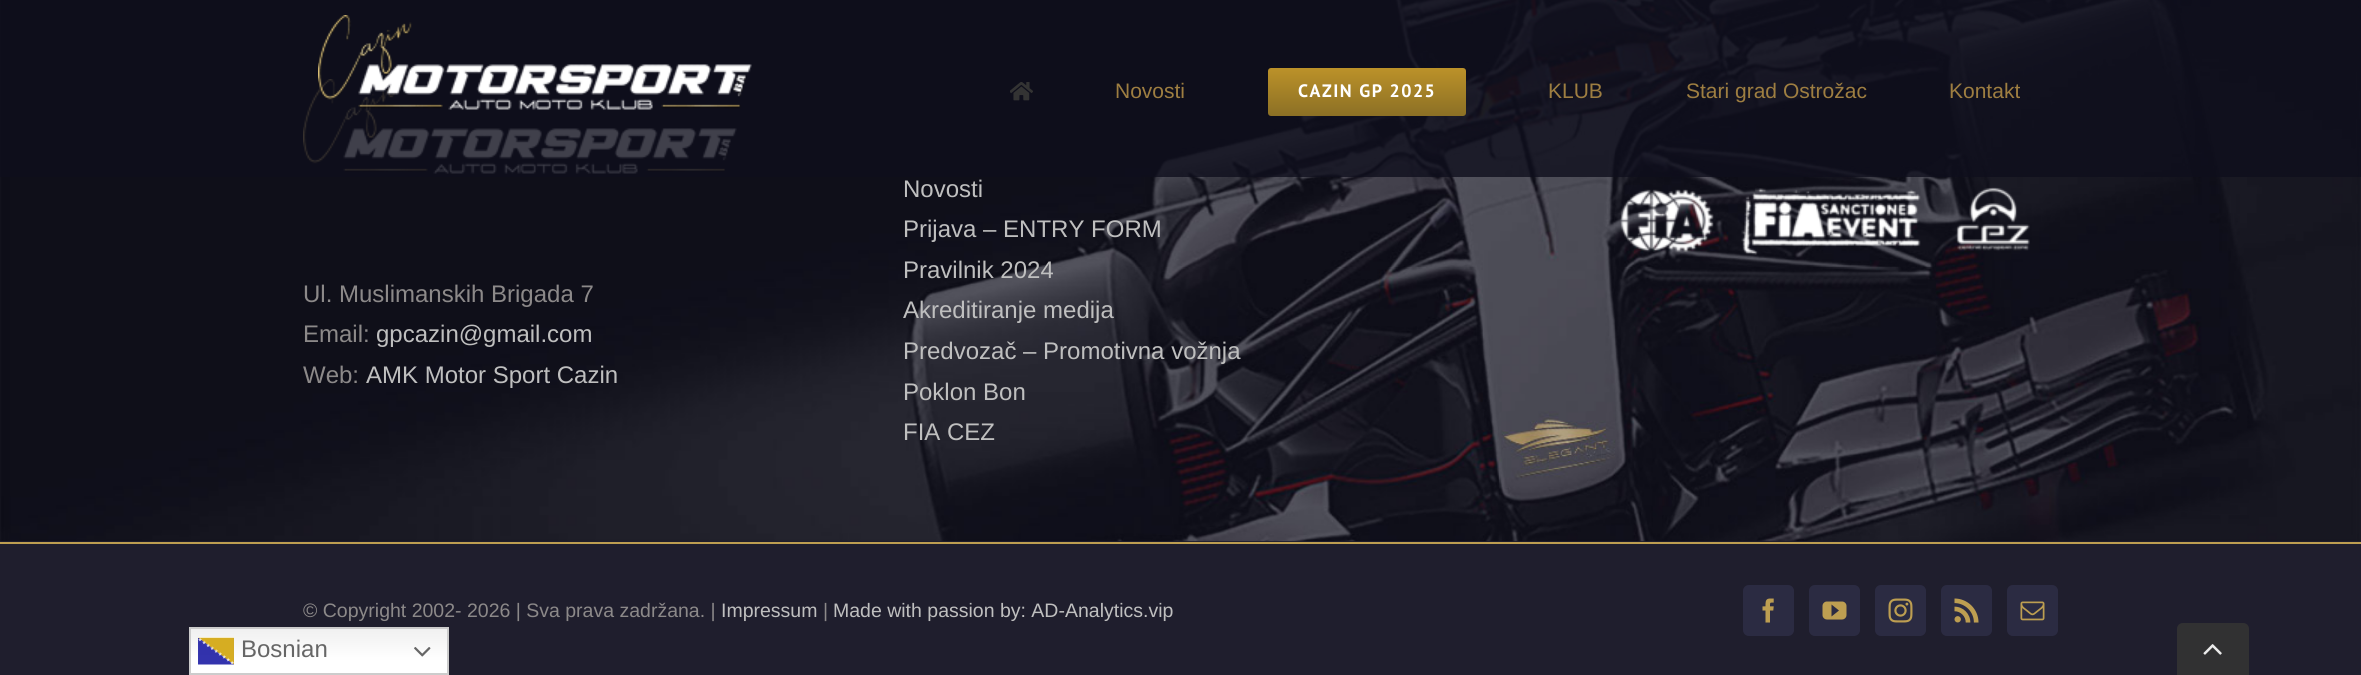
import math
import cairo

surface = cairo.ImageSurface(cairo.FORMAT_RGB24, 2361, 675)
c = cairo.Context(surface)
options = cairo.FontOptions()
options.set_hint_metrics(cairo.HINT_METRICS_OFF)
options.set_hint_style(cairo.HINT_STYLE_NONE)
c.set_font_options(options)
c.set_miter_limit(4)
def C(code):
 c.set_source_rgb(*(v / 255 for v in bytes.fromhex(code[-6:])))
def F(family, size, italic, bold):
 c.select_font_face(family, cairo.FONT_SLANT_ITALIC if italic else cairo.FONT_SLANT_NORMAL, cairo.FONT_WEIGHT_BOLD if bold else cairo.FONT_WEIGHT_NORMAL)
 c.set_font_size(size)
def T(x, y, s):
 c.move_to(x, y)
 c.show_text(s)
def L(x, y, s, letter, word):
 c.move_to(x, y)
 for ch in s:
  c.show_text(ch)
  c.rel_move_to(letter + word * (ch == ' '), 0)
def R(x, y, w, h):
 c.rectangle(x, y, w, h)
 c.fill()
def Q(x, y, w, h, r):
 c.new_sub_path()
 for i, (u, v) in enumerate([(x + w - r, y + h - r), (x + r, y + h - r), (x + r, y + r), (x + w - r, y + r)]):
  c.arc(u, v, r, i * math.pi / 2, (i + 1) * math.pi / 2)
 c.close_path()
def I(path, x, y, w, h):
 c.save()
 c.set_source_surface(cairo.ImageSurface.create_from_png(path), x, y)
 c.rectangle(x, y, w, h)
 c.fill()
 c.restore()
C('1f1e2d')
c.paint()
I('3.png',0,0,2361,542)
I('5.png',303,79,434,95)
c.set_source_rgba(0.059,0.055,0.11,0.79)
R(0,0,2361,177)
I('1.png',318,15,434,95)
I('2.png',1010,82,23,19)
F('Liberation Sans',21,0,0)
C('9e7e41')
T(1115,98,'Novosti')
gradient = cairo.LinearGradient(1367,67,1367,116)
gradient.add_color_stop_rgba(0,0.737,0.573,0.161,1)
gradient.add_color_stop_rgba(1,0.549,0.439,0.145,1)
c.set_source(gradient)
Q(1268,68,198,48,3)
c.fill()
F('PT Sans',18,0,1)
C('ffffff')
L(1298,97,'CAZIN GP 2025',1.5,0)
F('Liberation Sans',21,0,0)
C('9e7e41')
T(1548,98,'KLUB')
T(1686,98,'Stari grad Ostrožac')
T(1949,98,'Kontakt')
F('Liberation Sans',24,0,0)
C('bfbfbf')
T(903,197,'Novosti')
T(903,237,'Prijava – ENTRY FORM')
T(903,278,'Pravilnik 2024')
T(903,318,'Akreditiranje medija')
T(903,359,'Predvozač – Promotivna vožnja')
T(903,400,'Poklon Bon')
T(903,440,'FIA CEZ')
I('4.png',1620,187,410,68)
C('8c8989')
T(303,302,'Ul. Muslimanskih Brigada 7')
T(303,342,'Email:')
C('bfbfbf')
T(376,342,'gpcazin@gmail.com')
C('8c8989')
T(303,383,'Web:')
C('bfbfbf')
T(366,383,'AMK Motor Sport Cazin')
C('bd9e51')
R(0,542,2361,2)
F('Liberation Sans',19.5,0,0)
C('8c8989')
T(303,617,'© Copyright 2002- 2026 | Sva prava zadržana. |')
C('bfbfbf')
T(721,617,'Impressum')
C('8c8989')
T(823,617,'|')
C('bfbfbf')
T(833,617,'Made with passion by: AD-Analytics.vip')
C('2b2b42')
Q(1744,586,49,49,5)
c.fill_preserve()
c.stroke()
I('6.png',1762,598,12,25)
Q(1810,586,49,49,5)
c.fill_preserve()
c.stroke()
I('7.png',1822,601,25,19)
Q(1876,586,49,49,5)
c.fill_preserve()
c.stroke()
I('8.png',1888,598,25,25)
Q(1942,586,49,49,5)
c.fill_preserve()
c.stroke()
I('9.png',1954,598,25,25)
Q(2008,586,49,49,5)
c.fill_preserve()
c.stroke()
I('10.png',2020,601,25,20)
gradient = cairo.LinearGradient(319,627,319,675)
gradient.add_color_stop_rgba(0,0.937,0.937,0.937,1)
gradient.add_color_stop_rgba(.7,1,1,1,1)
c.set_source(gradient)
R(191,629,256,44)
c.rectangle(190,628,258,46)
C('cccccc')
c.stroke()
I('11.png',198,637,36,28)
F('Liberation Sans',24,0,0)
C('666666')
T(241,657,'Bosnian')
I('12.png',414,647,17,10)
C('313132')
c.new_path()
c.move_to(2183,623)
c.line_to(2243,623)
c.curve_to(2246.5,623,2249,625.5,2249,629)
c.line_to(2249,675)
c.line_to(2177,675)
c.line_to(2177,629)
c.curve_to(2177,625.5,2179.5,623,2183,623)
c.close_path()
c.fill()
I('13.png',2203,644,19,11)
surface.write_to_png('o.png')
